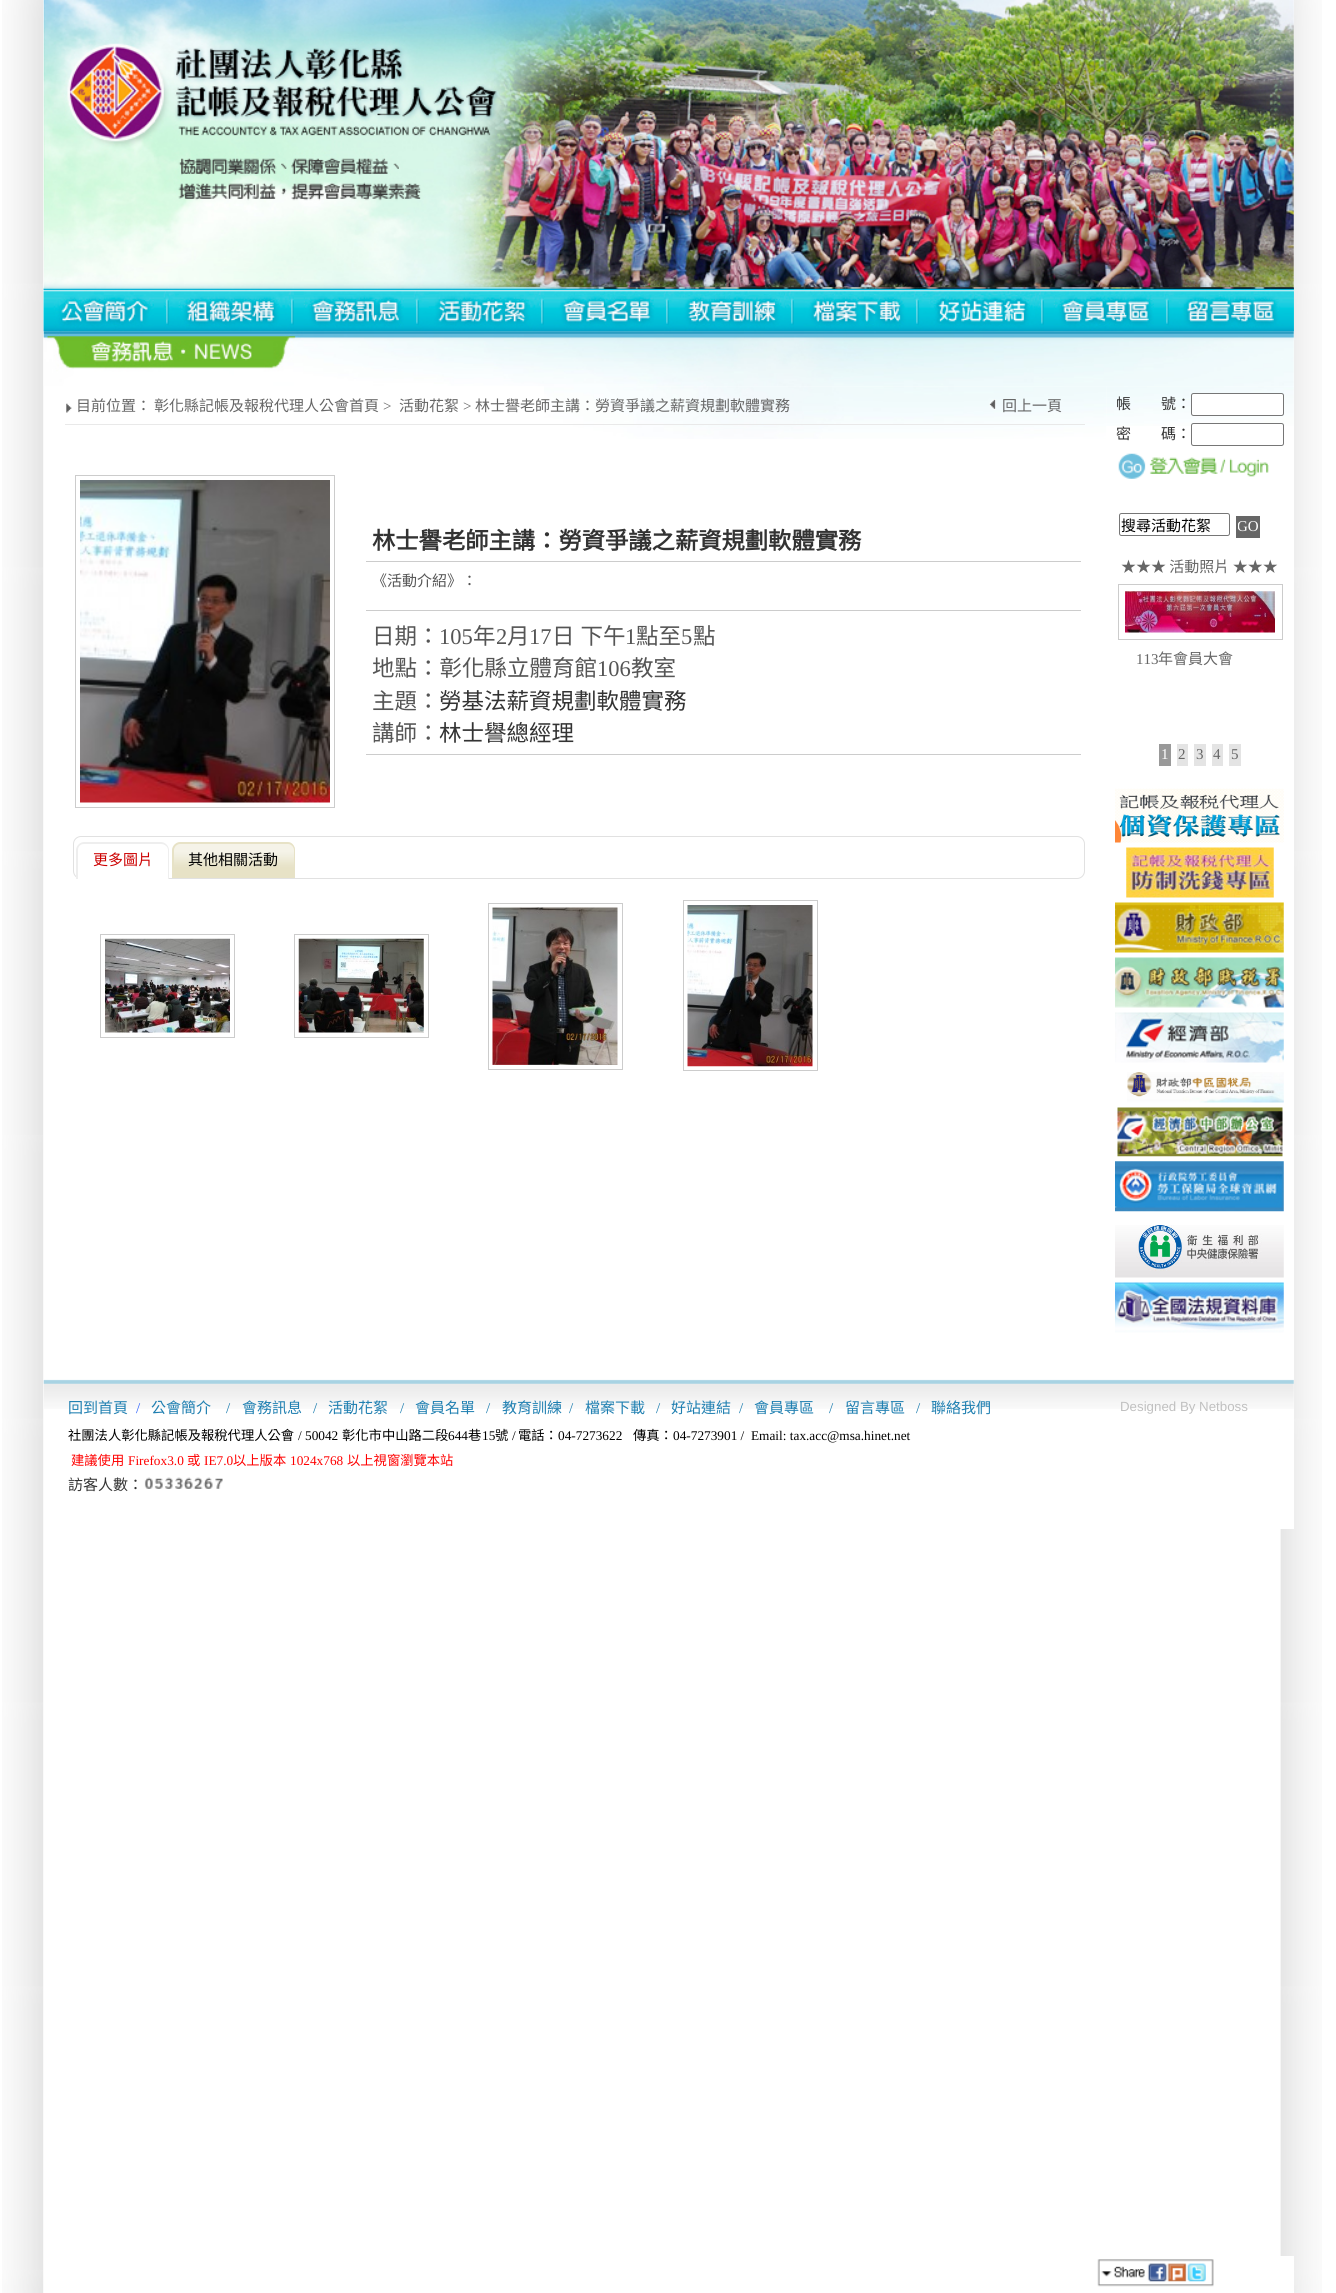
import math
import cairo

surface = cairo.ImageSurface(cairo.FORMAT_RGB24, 1336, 2293)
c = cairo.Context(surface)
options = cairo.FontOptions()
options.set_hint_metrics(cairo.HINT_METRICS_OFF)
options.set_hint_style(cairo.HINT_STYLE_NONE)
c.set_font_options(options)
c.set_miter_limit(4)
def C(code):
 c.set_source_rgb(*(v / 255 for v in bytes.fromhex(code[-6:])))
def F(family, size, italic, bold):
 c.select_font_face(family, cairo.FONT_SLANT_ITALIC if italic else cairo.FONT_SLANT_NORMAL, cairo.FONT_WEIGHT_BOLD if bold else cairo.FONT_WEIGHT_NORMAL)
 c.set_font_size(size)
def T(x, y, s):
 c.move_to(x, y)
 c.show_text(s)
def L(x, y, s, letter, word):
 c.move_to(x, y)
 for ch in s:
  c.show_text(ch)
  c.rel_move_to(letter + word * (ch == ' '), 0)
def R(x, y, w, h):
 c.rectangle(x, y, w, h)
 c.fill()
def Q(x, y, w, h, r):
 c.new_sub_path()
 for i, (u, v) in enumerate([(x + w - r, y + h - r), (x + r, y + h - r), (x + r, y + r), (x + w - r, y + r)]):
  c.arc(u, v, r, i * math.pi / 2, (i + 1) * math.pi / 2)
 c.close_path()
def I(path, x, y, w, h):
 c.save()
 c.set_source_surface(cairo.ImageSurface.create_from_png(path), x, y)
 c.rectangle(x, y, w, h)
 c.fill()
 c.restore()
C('ffffff')
c.paint()
I('1.png',2,0,1320,2293)
C('ffffff')
R(1280,0,14,1529)
I('2.png',43,0,1251,288)
I('3.png',43,287,1251,45)
I('14.png',43,331,1251,56)
I('4.png',43,287,126,45)
I('5.png',168,287,126,45)
I('6.png',293,287,126,45)
I('7.png',418,287,126,45)
I('8.png',543,287,126,45)
I('9.png',668,287,126,45)
I('10.png',793,287,126,45)
I('11.png',918,287,126,45)
I('12.png',1043,287,126,45)
I('13.png',1168,287,126,45)
I('15.png',544,386,563,53)
C('e9e9e9')
R(65,424,1020,1)
I('16.png',66,403,6,10)
F('Noto Sans CJK TC',15,0,0)
C('666666')
T(76,411,'目前位置：')
T(154,411,'彰化縣記帳及報稅代理人公會首頁')
F('Liberation Serif',15,0,0)
T(383,411,'>')
F('Noto Sans CJK TC',15,0,0)
T(399,411,'活動花絮')
F('Liberation Serif',15,0,0)
T(463,411,'>')
F('Noto Sans CJK TC',15,0,0)
T(475,411,'林士譽老師主講：勞資爭議之薪資規劃軟體實務')
I('17.png',989,399,7,11)
T(1002,411,'回上一頁')
c.rectangle(75.5,475.5,259,332)
C('cccccc')
c.set_line_width(1)
c.stroke()
I('18.png',80,480,250,323)
R(366,561,715,1)
F('Noto Sans CJK TC',23.3,0,1)
C('333333')
T(372,549,'林士譽老師主講：勞資爭議之薪資規劃軟體實務')
F('Noto Sans CJK TC',15,0,0)
C('555555')
T(372,586,'《活動介紹》：')
C('cccccc')
R(366,610,715,1)
R(366,754,715,1)
F('Noto Sans CJK TC',22.5,0,0)
C('555555')
T(372,644,'日期：')
F('Liberation Serif',22.5,0,0)
T(439,644,'105')
F('Noto Sans CJK TC',22.5,0,0)
T(473,644,'年')
F('Liberation Serif',22.5,0,0)
T(496,644,'2')
F('Noto Sans CJK TC',22.5,0,0)
T(507,644,'月')
F('Liberation Serif',22.5,0,0)
T(529,644,'17')
F('Noto Sans CJK TC',22.5,0,0)
L(552,644,'日 下午',0,1)
F('Liberation Serif',22.5,0,0)
T(625,644,'1')
F('Noto Sans CJK TC',22.5,0,0)
T(636,644,'點至')
F('Liberation Serif',22.5,0,0)
T(681,644,'5')
F('Noto Sans CJK TC',22.5,0,0)
T(693,644,'點')
T(372,676,'地點：彰化縣立體育館')
F('Liberation Serif',22.5,0,0)
T(597,676,'106')
F('Noto Sans CJK TC',22.5,0,0)
T(631,676,'教室')
T(372,709,'主題：')
C('333333')
T(439,709,'勞基法薪資規劃軟體實務')
C('555555')
T(372,741,'講師：')
C('333333')
T(439,741,'林士譽總經理')
Q(73.5,836.5,1011,42,7.5)
C('e1e1e1')
c.stroke()
C('ffffff')
c.new_path()
c.move_to(84,843)
c.line_to(161,843)
c.curve_to(165.5,843,169,846.5,169,851)
c.line_to(169,879)
c.line_to(76,879)
c.line_to(76,851)
c.curve_to(76,846.5,79.5,843,84,843)
c.close_path()
c.fill()
C('eeeeee')
c.set_fill_rule(cairo.FILL_RULE_EVEN_ODD)
c.new_path()
c.move_to(84,842)
c.line_to(161,842)
c.curve_to(165,842,169,846,169,850)
c.line_to(169,879)
c.line_to(76,879)
c.line_to(76,850)
c.curve_to(76,846,80,842,84,842)
c.close_path()
c.move_to(84,844)
c.line_to(161,844)
c.curve_to(165,844,168,847,168,850)
c.line_to(168,879)
c.line_to(78,879)
c.line_to(78,850)
c.curve_to(78,847,80,844,84,844)
c.close_path()
c.fill()
F('Noto Sans CJK TC',15,0,0)
C('cc0000')
T(93,865,'更多圖片')
C('e7e2c6')
c.new_path()
c.move_to(181,843)
c.line_to(287,843)
c.curve_to(291.5,843,295,846.5,295,851)
c.line_to(295,878)
c.line_to(173,878)
c.line_to(173,851)
c.curve_to(173,846.5,176.5,843,181,843)
c.close_path()
c.fill()
I('19.png',172,842,123,35)
c.new_path()
c.move_to(180,842)
c.line_to(288,842)
c.curve_to(292,842,295,846,295,850)
c.line_to(295,878)
c.line_to(172,878)
c.line_to(172,850)
c.curve_to(172,846,176,842,180,842)
c.close_path()
c.move_to(180,844)
c.line_to(288,844)
c.curve_to(291,844,294,847,294,850)
c.line_to(294,878)
c.line_to(174,878)
c.line_to(174,850)
c.curve_to(174,847,177,844,180,844)
c.close_path()
c.fill()
C('000000')
T(188,865,'其他相關活動')
c.rectangle(100.5,934.5,134,103)
C('cccccc')
c.stroke()
I('20.png',105,938,125,95)
c.rectangle(294.5,934.5,134,103)
c.stroke()
I('21.png',298,938,126,95)
c.rectangle(488.5,903.5,134,166)
c.stroke()
I('22.png',492,907,126,158)
c.rectangle(683.5,900.5,134,170)
c.stroke()
I('23.png',687,905,126,162)
I('24.png',1106,386,188,40)
C('333333')
T(1116,409,'帳　　號：')
C('ffffff')
Q(1191.5,393.5,92,22,2)
c.fill_preserve()
C('767676')
c.stroke()
C('333333')
T(1116,439,'密　　碼：')
C('ffffff')
Q(1191.5,423.5,92,22,2)
c.fill_preserve()
C('767676')
c.stroke()
I('25.png',1118,453,151,26)
Q(1119.5,513.5,110,22,2)
c.stroke()
C('000000')
T(1121,531,'搜尋活動花絮')
C('666666')
R(1236,516,24,22)
c.save()
c.set_fill_rule(cairo.FILL_RULE_WINDING)
c.rectangle(1238,518,21,18)
c.clip()
F('Liberation Serif',15,0,0)
C('ffffff')
T(1237,531,'GO')
c.restore()
T(1121,572,'★★★ 活動照片 ★★★')
c.rectangle(1118.5,584.5,164,55)
C('cccccc')
c.stroke()
I('26.png',1125,591,150,42)
F('Liberation Serif',15,0,0)
C('666666')
T(1136,664,'113')
F('Noto Sans CJK TC',15,0,0)
T(1158,664,'年會員大會')
C('999999')
R(1159,744,12,22)
F('Liberation Serif',15,0,0)
C('ffffff')
T(1161,759,'1')
C('e4e4e4')
R(1177,744,11,22)
C('666666')
T(1178,759,'2')
C('e4e4e4')
R(1194,744,12,22)
C('666666')
T(1196,759,'3')
C('e4e4e4')
R(1212,744,11,22)
C('666666')
T(1213,759,'4')
C('e4e4e4')
R(1229,744,12,22)
C('666666')
T(1231,759,'5')
I('27.png',1115,788,169,55)
I('28.png',1126,847,148,51)
I('29.png',1115,902,169,51)
I('30.png',1115,957,169,51)
I('31.png',1115,1012,169,51)
I('32.png',1127,1072,157,31)
I('33.png',1117,1107,166,50)
I('34.png',1115,1161,169,51)
I('35.png',1115,1225,169,53)
I('36.png',1115,1282,169,51)
I('37.png',43,1379,1251,30)
F('Noto Sans CJK TC',15,0,0)
C('1f7fb1')
T(68,1413,'回到首頁')
F('Liberation Serif',15,0,0)
C('3366ff')
T(136,1413,'/')
F('Noto Sans CJK TC',15,0,0)
C('1f7fb1')
T(151,1413,'公會簡介')
F('Liberation Serif',15,0,0)
T(226,1413,'/')
F('Noto Sans CJK TC',15,0,0)
T(242,1413,'會務訊息')
F('Liberation Serif',15,0,0)
T(313,1413,'/')
F('Noto Sans CJK TC',15,0,0)
T(328,1413,'活動花絮')
F('Liberation Serif',15,0,0)
T(400,1413,'/')
F('Noto Sans CJK TC',15,0,0)
T(415,1413,'會員名單')
F('Liberation Serif',15,0,0)
T(486,1413,'/')
F('Noto Sans CJK TC',15,0,0)
T(502,1413,'教育訓練')
F('Liberation Serif',15,0,0)
T(569,1413,'/')
F('Noto Sans CJK TC',15,0,0)
T(585,1413,'檔案下載')
F('Liberation Serif',15,0,0)
T(656,1413,'/')
F('Noto Sans CJK TC',15,0,0)
T(671,1413,'好站連結')
F('Liberation Serif',15,0,0)
T(739,1413,'/')
F('Noto Sans CJK TC',15,0,0)
T(754,1413,'會員專區')
F('Liberation Serif',15,0,0)
T(829,1413,'/')
F('Noto Sans CJK TC',15,0,0)
T(845,1413,'留言專區')
F('Liberation Serif',15,0,0)
T(916,1413,'/')
F('Noto Sans CJK TC',15,0,0)
T(931,1413,'聯絡我們')
F('Liberation Sans',13.3,0,0)
C('c0c0c0')
T(1120,1411,'Designed By Netboss')
F('Noto Sans CJK TC',13.3,0,0)
C('000000')
T(68,1440,'社團法人彰化縣記帳及報稅代理人公會')
F('Liberation Serif',13.3,0,0)
T(298,1440,'/ 50042')
F('Noto Sans CJK TC',13.3,0,0)
T(342,1440,'彰化市中山路二段')
F('Liberation Serif',13.3,0,0)
T(448,1440,'644')
F('Noto Sans CJK TC',13.3,0,0)
T(468,1440,'巷')
F('Liberation Serif',13.3,0,0)
T(482,1440,'15')
F('Noto Sans CJK TC',13.3,0,0)
T(495,1440,'號')
F('Liberation Serif',13.3,0,0)
T(512,1440,'/')
F('Noto Sans CJK TC',13.3,0,0)
T(518,1440,'電話：')
F('Liberation Serif',13.3,0,0)
T(558,1440,'04-7273622')
F('Noto Sans CJK TC',13.3,0,0)
T(633,1440,'傳真：')
F('Liberation Serif',13.3,0,0)
T(673,1440,'04-7273901 /')
T(751,1440,'Email: tax.acc@msa.hinet.net')
F('Noto Sans CJK TC',13.3,0,0)
C('ff0000')
T(71,1465,'建議使用')
F('Liberation Serif',13.3,0,0)
T(128,1465,'Firefox3.0')
F('Noto Sans CJK TC',13.3,0,0)
T(187,1465,'或')
F('Liberation Serif',13.3,0,0)
T(204,1465,'IE7.0')
F('Noto Sans CJK TC',13.3,0,0)
T(233,1465,'以上版本')
F('Liberation Serif',13.3,0,0)
T(290,1465,'1024x768')
F('Noto Sans CJK TC',13.3,0,0)
T(347,1465,'以上視窗瀏覽本站')
F('Noto Sans CJK TC',15,0,0)
C('333333')
T(68,1490,'訪客人數：')
I('38.png',144,1477,9,12)
I('39.png',154,1478,9,11)
I('40.png',165,1477,8,12)
I('40.png',175,1477,8,12)
I('41.png',183,1477,10,12)
I('42.png',193,1477,10,12)
I('41.png',203,1477,10,12)
I('43.png',215,1478,8,11)
C('ffffff')
R(1280,2256,14,37)
I('44.png',1097,2259,117,28)
surface.write_to_png('o.png')
